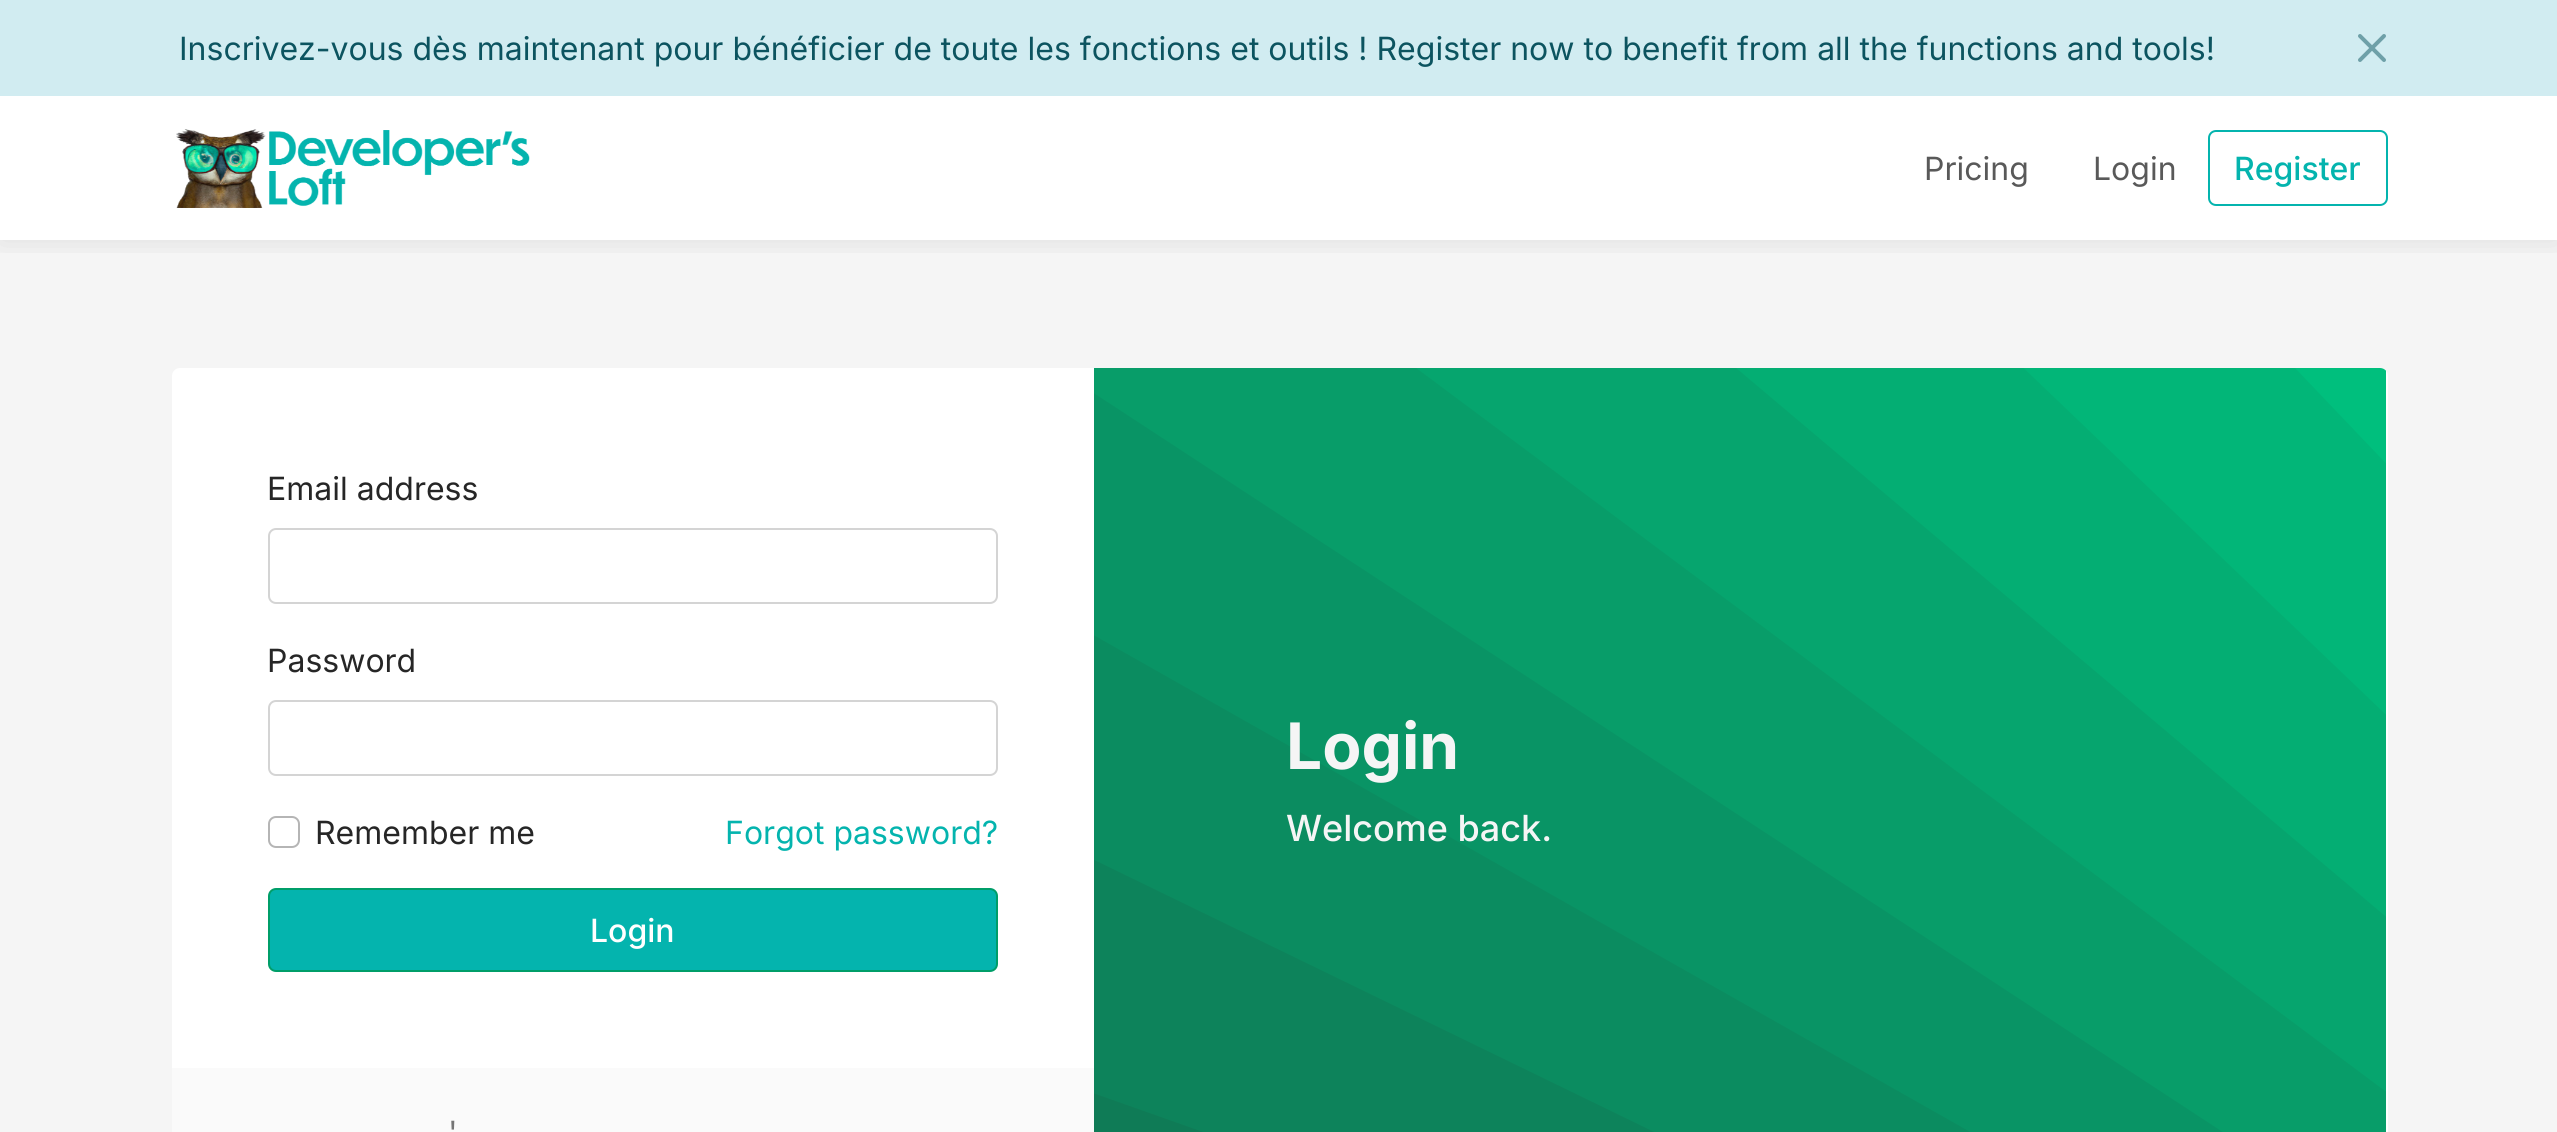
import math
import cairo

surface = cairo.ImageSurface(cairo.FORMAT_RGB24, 2557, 1132)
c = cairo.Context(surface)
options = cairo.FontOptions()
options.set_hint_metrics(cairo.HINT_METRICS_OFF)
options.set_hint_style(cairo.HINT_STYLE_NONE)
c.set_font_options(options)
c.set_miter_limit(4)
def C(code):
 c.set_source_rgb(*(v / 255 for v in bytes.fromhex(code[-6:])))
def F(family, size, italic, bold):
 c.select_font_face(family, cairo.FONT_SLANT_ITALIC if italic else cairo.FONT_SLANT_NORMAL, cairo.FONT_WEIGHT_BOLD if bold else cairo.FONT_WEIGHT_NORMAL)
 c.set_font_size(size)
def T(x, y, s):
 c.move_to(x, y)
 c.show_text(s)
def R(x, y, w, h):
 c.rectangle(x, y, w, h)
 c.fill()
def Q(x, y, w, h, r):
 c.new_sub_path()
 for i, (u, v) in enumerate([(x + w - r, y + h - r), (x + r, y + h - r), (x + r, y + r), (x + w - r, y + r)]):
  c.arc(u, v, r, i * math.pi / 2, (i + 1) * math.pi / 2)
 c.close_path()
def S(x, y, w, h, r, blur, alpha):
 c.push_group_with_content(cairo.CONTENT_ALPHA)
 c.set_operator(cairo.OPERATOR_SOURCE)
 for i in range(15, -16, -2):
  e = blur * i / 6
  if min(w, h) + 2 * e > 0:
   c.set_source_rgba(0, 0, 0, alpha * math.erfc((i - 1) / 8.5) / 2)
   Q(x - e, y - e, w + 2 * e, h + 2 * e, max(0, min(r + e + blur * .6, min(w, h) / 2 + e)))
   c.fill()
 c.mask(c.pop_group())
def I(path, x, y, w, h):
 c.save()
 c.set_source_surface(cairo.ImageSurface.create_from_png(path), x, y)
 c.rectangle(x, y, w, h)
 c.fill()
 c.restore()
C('ffffff')
c.paint()
C('f5f5f5')
R(0,240,2557,892)
c.save()
c.rectangle(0,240,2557,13)
c.clip()
C('000000')
S(0,96,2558,144,0,16,.1)
c.restore()
C('d1ecf1')
R(0,0,2557,96)
F('Inter',32,0,0)
C('0c5460')
T(179,60,'Inscrivez-vous dès maintenant pour bénéficier de toute les fonctions et outils ! Register now to benefit from all the functions and tools!')
I('1.png',2358,34,28,28)
I('2.png',176,129,354,79)
C('595959')
T(1924,180,'Pricing')
T(2093,180,'Login')
Q(2209,131,178,74,7)
C('04b4ae')
c.stroke()
F('Inter Medium',32,0,0)
T(2234,180,'Register')
C('ffffff')
Q(172,368,2216,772,8)
c.fill()
F('Inter',32,0,0)
C('262626')
T(267,500,'Email address')
Q(269,529,728,74,7)
C('d4d4d4')
c.stroke()
C('262626')
T(267,672,'Password')
Q(269,701,728,74,7)
C('d4d4d4')
c.stroke()
Q(269,817,30,30,7)
C('b5b5b5')
c.stroke()
C('262626')
T(315,844,'Remember me')
C('04b4ae')
T(725,844,'Forgot password?')
Q(269,889,728,82,7)
c.fill_preserve()
C('009e69')
c.stroke()
F('Inter Medium',32,0,0)
C('ffffff')
T(590,942,'Login')
C('fafafa')
R(172,1068,922,64)
F('Inter',32,0,0)
C('757575')
T(448,1144,'\'')
I('3.png',1094,368,1292,764)
F('Inter',64,0,1)
C('f5f5f5')
T(1286,769,'Login')
F('Inter Medium',36,0,0)
T(1286,841,'Welcome back.')
surface.write_to_png('o.png')
